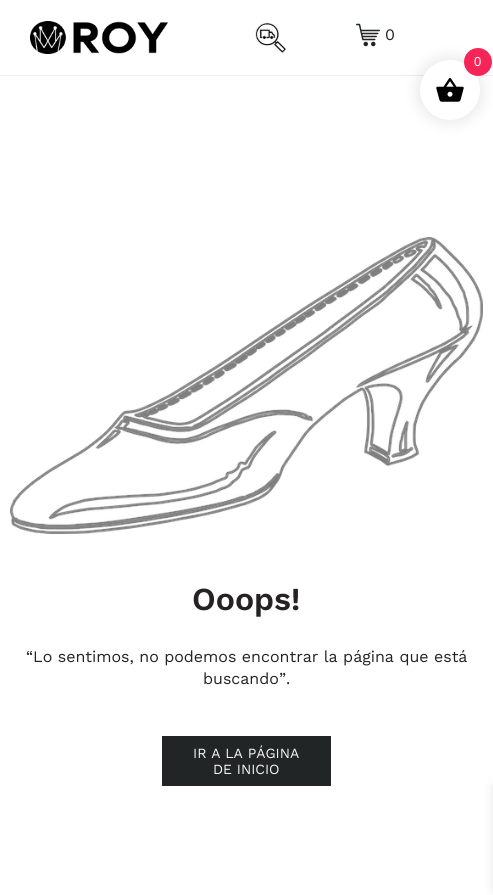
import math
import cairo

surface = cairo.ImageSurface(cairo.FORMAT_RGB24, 493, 895)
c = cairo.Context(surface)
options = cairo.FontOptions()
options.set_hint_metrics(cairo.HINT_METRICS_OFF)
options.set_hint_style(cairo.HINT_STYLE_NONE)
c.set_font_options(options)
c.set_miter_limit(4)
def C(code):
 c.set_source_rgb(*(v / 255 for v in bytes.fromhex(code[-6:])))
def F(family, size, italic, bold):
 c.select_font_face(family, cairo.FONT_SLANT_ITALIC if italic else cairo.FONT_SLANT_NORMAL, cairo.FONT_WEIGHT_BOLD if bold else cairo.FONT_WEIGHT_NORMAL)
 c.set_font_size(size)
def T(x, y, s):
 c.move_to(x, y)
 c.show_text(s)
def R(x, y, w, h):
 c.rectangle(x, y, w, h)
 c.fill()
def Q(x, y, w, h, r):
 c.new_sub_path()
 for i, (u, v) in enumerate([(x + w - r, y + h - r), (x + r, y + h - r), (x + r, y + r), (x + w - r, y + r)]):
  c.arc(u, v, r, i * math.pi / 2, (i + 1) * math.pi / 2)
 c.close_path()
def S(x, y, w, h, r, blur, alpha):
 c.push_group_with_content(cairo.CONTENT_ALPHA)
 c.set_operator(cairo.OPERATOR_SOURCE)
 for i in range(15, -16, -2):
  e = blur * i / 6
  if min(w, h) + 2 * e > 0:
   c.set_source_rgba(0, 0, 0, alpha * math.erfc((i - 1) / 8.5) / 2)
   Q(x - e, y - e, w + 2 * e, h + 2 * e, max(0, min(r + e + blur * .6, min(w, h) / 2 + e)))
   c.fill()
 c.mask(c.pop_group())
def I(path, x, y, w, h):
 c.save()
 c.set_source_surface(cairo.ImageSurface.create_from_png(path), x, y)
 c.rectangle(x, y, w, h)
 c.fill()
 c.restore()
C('ffffff')
c.paint()
C('eeeeee')
R(0,75,493,1)
I('1.png',30,21,138,33)
I('2.png',255,23,32,30)
I('3.png',356,23,24,24)
F('Work Sans',16,0,0)
C('262123')
T(385,40,'0')
I('4.png',10,237,473,297)
F('Work Sans SemiBold',32,0,0)
T(192,610,'Ooops!')
F('Work Sans',16,0,0)
T(26,662,'“Lo sentimos, no podemos encontrar la página que está')
T(203,684,'buscando”.')
C('212526')
R(162,736,169,50)
F('Work Sans',14,0,0)
C('f8f7f7')
T(193,758,'IR A LA PÁGINA')
T(213,774,'DE INICIO')
C('000000')
S(418,58,64,64,32,7.5,.1)
C('ffffff')
c.arc(450,90,30,0,2 * math.pi)
c.fill()
C('f72457')
c.arc(478,62,14,0,2 * math.pi)
c.fill()
F('Liberation Sans',13,0,0)
C('ffffff')
T(474,66,'0')
I('5.png',436,78,28,24)
C('000000')
S(493,786,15,104,0,5,.1)
surface.write_to_png('o.png')
